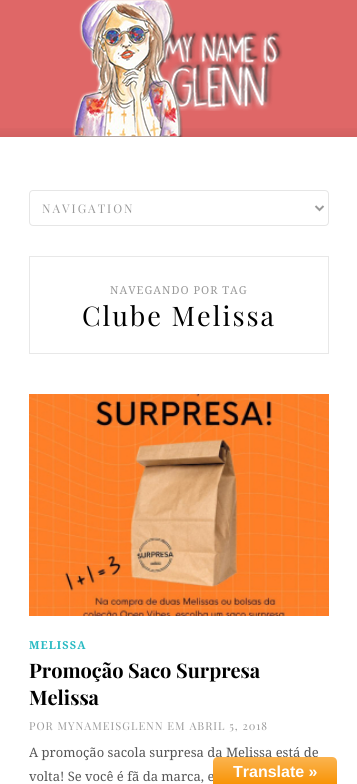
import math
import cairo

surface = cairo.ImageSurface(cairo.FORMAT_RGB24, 357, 784)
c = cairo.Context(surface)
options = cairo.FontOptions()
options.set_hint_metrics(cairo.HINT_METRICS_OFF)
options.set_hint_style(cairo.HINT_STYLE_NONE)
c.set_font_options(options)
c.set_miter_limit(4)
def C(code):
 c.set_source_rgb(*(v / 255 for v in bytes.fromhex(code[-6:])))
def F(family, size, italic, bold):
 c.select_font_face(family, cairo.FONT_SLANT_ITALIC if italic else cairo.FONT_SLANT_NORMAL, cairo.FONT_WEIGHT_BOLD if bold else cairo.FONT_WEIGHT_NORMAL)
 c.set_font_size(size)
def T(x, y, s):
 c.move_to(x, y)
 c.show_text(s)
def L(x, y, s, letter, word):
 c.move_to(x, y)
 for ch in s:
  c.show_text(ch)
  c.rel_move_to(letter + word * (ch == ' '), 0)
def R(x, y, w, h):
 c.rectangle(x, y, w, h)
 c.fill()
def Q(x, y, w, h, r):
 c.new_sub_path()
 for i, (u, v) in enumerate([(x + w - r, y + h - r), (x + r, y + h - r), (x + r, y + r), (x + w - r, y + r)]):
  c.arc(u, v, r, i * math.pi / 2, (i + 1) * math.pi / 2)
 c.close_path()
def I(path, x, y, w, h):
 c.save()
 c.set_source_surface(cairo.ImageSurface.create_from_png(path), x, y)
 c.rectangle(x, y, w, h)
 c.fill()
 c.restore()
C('ffffff')
c.paint()
C('df6767')
R(0,0,357,137)
I('1.png',0,128,357,9)
I('2.png',72,0,211,137)
Q(29.5,190.5,299,35,3.5)
C('e6e6e6')
c.set_line_width(1)
c.stroke()
c.new_path()
c.move_to(315.5,206)
c.line_to(319.5,210)
c.line_to(323.5,206)
C('999999')
c.set_line_width(2)
c.stroke()
F('Playfair Display',12,0,0)
L(42,213,'NAVIGATION',2,0)
c.rectangle(29.5,256.5,299,97)
C('e8e8e8')
c.set_line_width(1)
c.stroke()
F('Droid Serif',11,0,0)
C('999999')
L(110,294,'NAVEGANDO POR TAG',1,0)
F('Playfair Display',27,0,0)
C('000000')
L(82,326,'Clube Melissa',2,0)
I('3.png',29,394,300,222)
F('Droid Serif',11,0,1)
C('27b9c2')
L(29,649,'MELISSA',1,0)
F('Playfair Display',20,0,1)
C('000000')
T(29,678,'Promoção Saco Surpresa')
T(29,705,'Melissa')
F('Playfair Display',11,0,0)
C('999999')
L(29,730,'POR MYNAMEISGLENN EM ABRIL 5, 2018',1,0)
F('Droid Serif',13,0,0)
C('555555')
T(29,757,'A promoção sacola surpresa da Melissa está de')
T(29,781,'volta! Se você é fã da marca, e')
gradient = cairo.LinearGradient(275,757,275,784)
gradient.add_color_stop_rgba(0,0.984,0.706,0.314,1)
gradient.add_color_stop_rgba(1,0.973,0.58,0.024,1)
c.set_source(gradient)
c.new_path()
c.move_to(218,757)
c.line_to(332,757)
c.curve_to(335,757,337,759,337,762)
c.line_to(337,784)
c.line_to(213,784)
c.line_to(213,762)
c.curve_to(213,759,215,757,218,757)
c.close_path()
c.fill()
F('Liberation Sans',16,0,1)
C('ffffff')
T(233,777,'Translate »')
surface.write_to_png('o.png')
